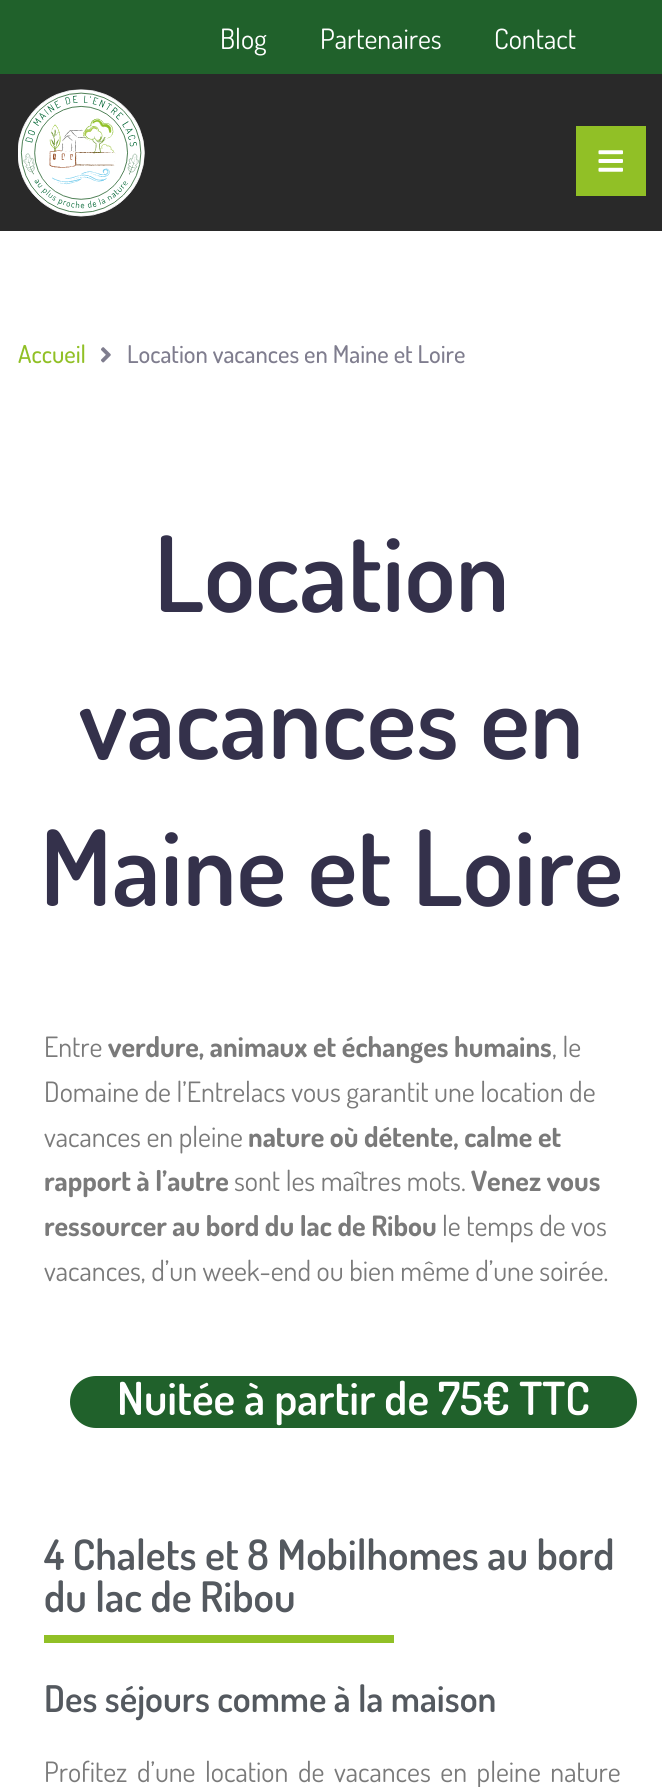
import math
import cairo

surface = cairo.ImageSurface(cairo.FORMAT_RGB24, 662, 1787)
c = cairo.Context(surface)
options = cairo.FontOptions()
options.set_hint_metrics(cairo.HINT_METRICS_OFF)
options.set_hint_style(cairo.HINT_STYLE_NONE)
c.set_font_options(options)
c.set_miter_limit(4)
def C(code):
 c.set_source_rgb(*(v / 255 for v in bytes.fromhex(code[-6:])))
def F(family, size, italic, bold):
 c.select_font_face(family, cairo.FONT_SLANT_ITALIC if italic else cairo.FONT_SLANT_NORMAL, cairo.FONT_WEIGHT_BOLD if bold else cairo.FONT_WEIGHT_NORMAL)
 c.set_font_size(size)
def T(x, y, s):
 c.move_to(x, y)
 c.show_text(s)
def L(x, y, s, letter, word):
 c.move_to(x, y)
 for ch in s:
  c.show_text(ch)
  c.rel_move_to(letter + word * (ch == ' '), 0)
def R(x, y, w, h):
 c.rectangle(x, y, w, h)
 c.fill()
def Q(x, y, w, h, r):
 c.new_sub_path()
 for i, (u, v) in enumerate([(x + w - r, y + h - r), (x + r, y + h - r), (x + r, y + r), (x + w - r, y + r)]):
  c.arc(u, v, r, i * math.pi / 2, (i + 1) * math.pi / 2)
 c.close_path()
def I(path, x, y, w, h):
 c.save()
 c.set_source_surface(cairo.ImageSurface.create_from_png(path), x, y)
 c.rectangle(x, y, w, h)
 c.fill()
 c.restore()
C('ffffff')
c.paint()
C('20612b')
R(0,0,662,74)
F('Dosis',28,0,0)
C('ffffff')
T(220,49,'Blog')
T(320,49,'Partenaires')
T(494,49,'Contact')
C('292929')
R(0,74,662,157)
I('1.png',18,89,127,128)
C('91c026')
R(576,126,70,70)
I('2.png',598,150,25,22)
F('Dosis Medium',24.5,0,0)
T(18,363,'Accueil')
I('3.png',101,347,10,16)
C('7f7d8e')
T(127,363,'Location vacances en Maine et Loire')
F('Dosis SemiBold',105,0,0)
C('34314b')
T(154,612,'Location')
T(79,759,'vacances en')
T(40,906,'Maine et Loire')
F('Dosis',28,0,0)
C('7a7a7a')
T(44,1057,'Entre')
F('Dosis',28,0,1)
T(108,1057,'verdure, animaux et échanges humains')
F('Dosis',28,0,0)
T(552,1057,', le')
T(44,1102,'Domaine de l’Entrelacs vous garantit une location de')
T(44,1147,'vacances en pleine')
F('Dosis',28,0,1)
T(248,1147,'nature où détente, calme et')
T(44,1191,'rapport à l’autre')
F('Dosis',28,0,0)
T(234,1191,'sont les maîtres mots.')
F('Dosis',28,0,1)
T(471,1191,'Venez vous')
T(44,1236,'ressourcer au bord du lac de Ribou')
F('Dosis',28,0,0)
T(442,1236,'le temps de vos')
T(44,1281,'vacances, d’un week-end ou bien même d’une soirée.')
C('20612b')
Q(70,1376,567,52,26)
c.fill()
F('Dosis SemiBold',45.5,0,0)
C('ffffff')
T(117,1415,'Nuitée à partir de 75€ TTC')
F('Dosis SemiBold',42,0,0)
C('54595f')
T(44,1570,'4 Chalets et 8 Mobilhomes au bord')
T(44,1612,'du lac de Ribou')
C('91c026')
R(44,1635,350,8)
F('Dosis SemiBold',36.75,0,0)
C('54595f')
T(44,1712,'Des séjours comme à la maison')
F('Dosis',28,0,0)
C('7a7a7a')
L(44,1782,'Profitez d’une location de vacances en pleine nature',0,4)
surface.write_to_png('o.png')
